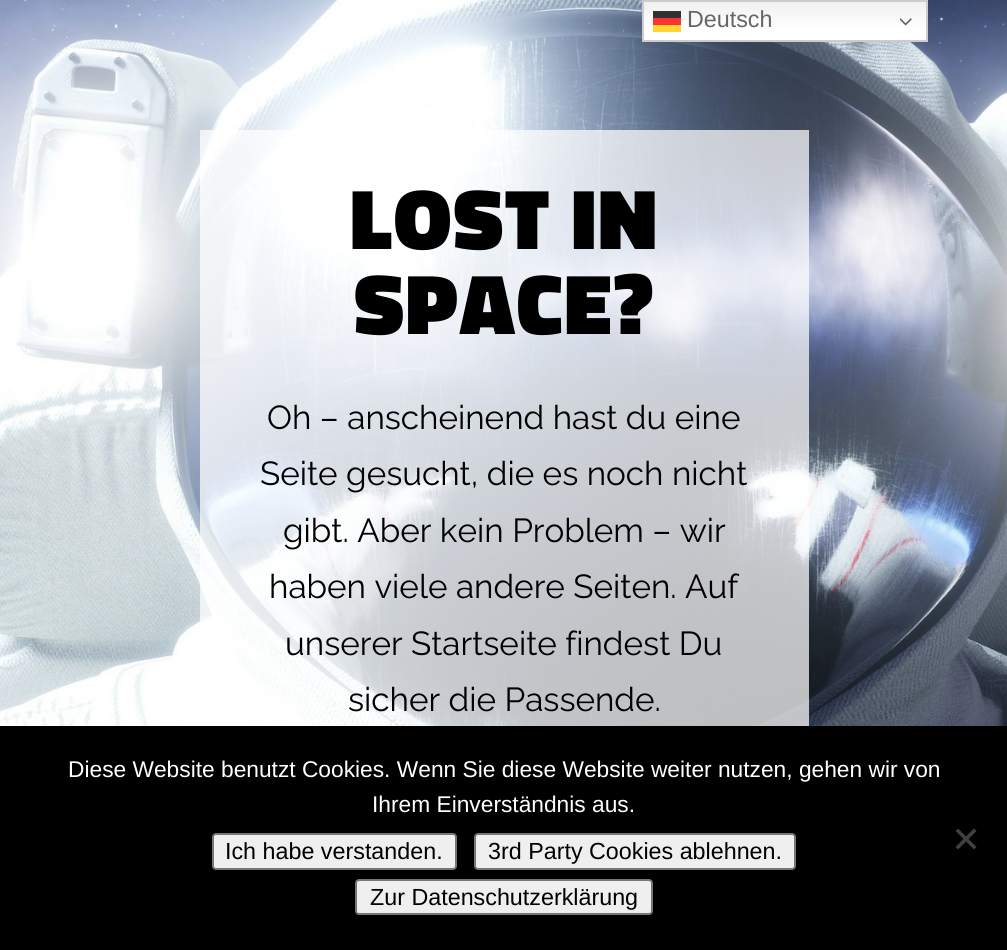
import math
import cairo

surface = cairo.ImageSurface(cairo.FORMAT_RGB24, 1007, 950)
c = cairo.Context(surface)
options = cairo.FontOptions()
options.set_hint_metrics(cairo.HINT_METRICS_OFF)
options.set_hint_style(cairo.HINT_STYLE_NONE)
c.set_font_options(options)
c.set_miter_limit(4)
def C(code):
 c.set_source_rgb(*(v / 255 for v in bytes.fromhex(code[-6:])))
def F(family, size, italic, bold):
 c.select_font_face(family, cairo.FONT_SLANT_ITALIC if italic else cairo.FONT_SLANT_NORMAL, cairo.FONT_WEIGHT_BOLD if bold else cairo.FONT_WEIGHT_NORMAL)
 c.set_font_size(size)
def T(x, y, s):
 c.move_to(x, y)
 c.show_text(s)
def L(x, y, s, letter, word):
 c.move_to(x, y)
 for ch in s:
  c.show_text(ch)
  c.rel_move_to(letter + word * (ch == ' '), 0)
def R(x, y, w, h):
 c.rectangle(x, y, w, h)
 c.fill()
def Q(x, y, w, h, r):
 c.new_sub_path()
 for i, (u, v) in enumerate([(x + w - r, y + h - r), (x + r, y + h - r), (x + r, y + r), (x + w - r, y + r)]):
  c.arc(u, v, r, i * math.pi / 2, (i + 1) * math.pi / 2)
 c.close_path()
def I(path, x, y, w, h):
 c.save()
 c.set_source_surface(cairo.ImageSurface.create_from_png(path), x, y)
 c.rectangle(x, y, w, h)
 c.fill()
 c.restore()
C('ffffff')
c.paint()
I('2.png',0,0,1007,726)
gradient = cairo.LinearGradient(785,0,785,42)
gradient.add_color_stop_rgba(0,0.937,0.937,0.937,1)
gradient.add_color_stop_rgba(.7,1,1,1,1)
c.set_source(gradient)
R(644,2,282,38)
c.rectangle(643,1,284,40)
C('cccccc')
c.stroke()
c.set_source_rgba(0,0,0,0.8)
R(653,11,28,7)
F('Liberation Sans',23.3,0,0)
C('666666')
T(687,27,'Deutsch')
c.set_source_rgba(1,0,0,0.8)
R(653,18,28,7)
I('1.png',900,18,12,8)
C('ffd633')
R(653,25,28,7)
c.set_source_rgba(1,1,1,0.72)
R(200,130,609,259)
F('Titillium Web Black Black',86,0,0)
C('000000')
L(350,249,'LOST IN',1.75,0)
L(354,334,'SPACE?',1.75,0)
c.set_source_rgba(1,1,1,0.72)
R(200,389,609,337)
F('Raleway',33.25,0,0)
C('000000')
T(267,429,'Oh – anscheinend hast du eine')
T(260,485,'Seite gesucht, die es noch nicht')
T(283,542,'gibt. Aber kein Problem – wir')
T(269,598,'haben viele andere Seiten. Auf')
T(285,655,'unserer Startseite findest Du')
T(348,711,'sicher die Passende.')
R(0,726,1007,224)
F('Liberation Sans',22.75,0,0)
C('ffffff')
T(68,777,'Diese Website benutzt Cookies. Wenn Sie diese Website weiter nutzen, gehen wir von')
T(372,812,'Ihrem Einverständnis aus.')
C('404040')
c.new_path()
c.move_to(974,828.5)
c.line_to(976.5,831)
c.line_to(958,849.5)
c.line_to(955.5,847)
c.close_path()
c.fill()
c.new_path()
c.move_to(955.5,831)
c.line_to(958,828.5)
c.line_to(976.5,847)
c.line_to(974,849.5)
c.close_path()
c.fill()
C('efefef')
Q(213,834,243,35,3)
c.fill_preserve()
C('767676')
c.stroke()
F('Liberation Sans',23.3,0,0)
C('000000')
T(225,859,'Ich habe verstanden.')
C('efefef')
Q(475,834,320,35,3)
c.fill_preserve()
C('767676')
c.stroke()
C('000000')
T(488,859,'3rd Party Cookies ablehnen.')
C('efefef')
Q(356,880,296,34,3)
c.fill_preserve()
C('767676')
c.stroke()
C('000000')
T(370,905,'Zur Datenschutzerklärung')
surface.write_to_png('o.png')
